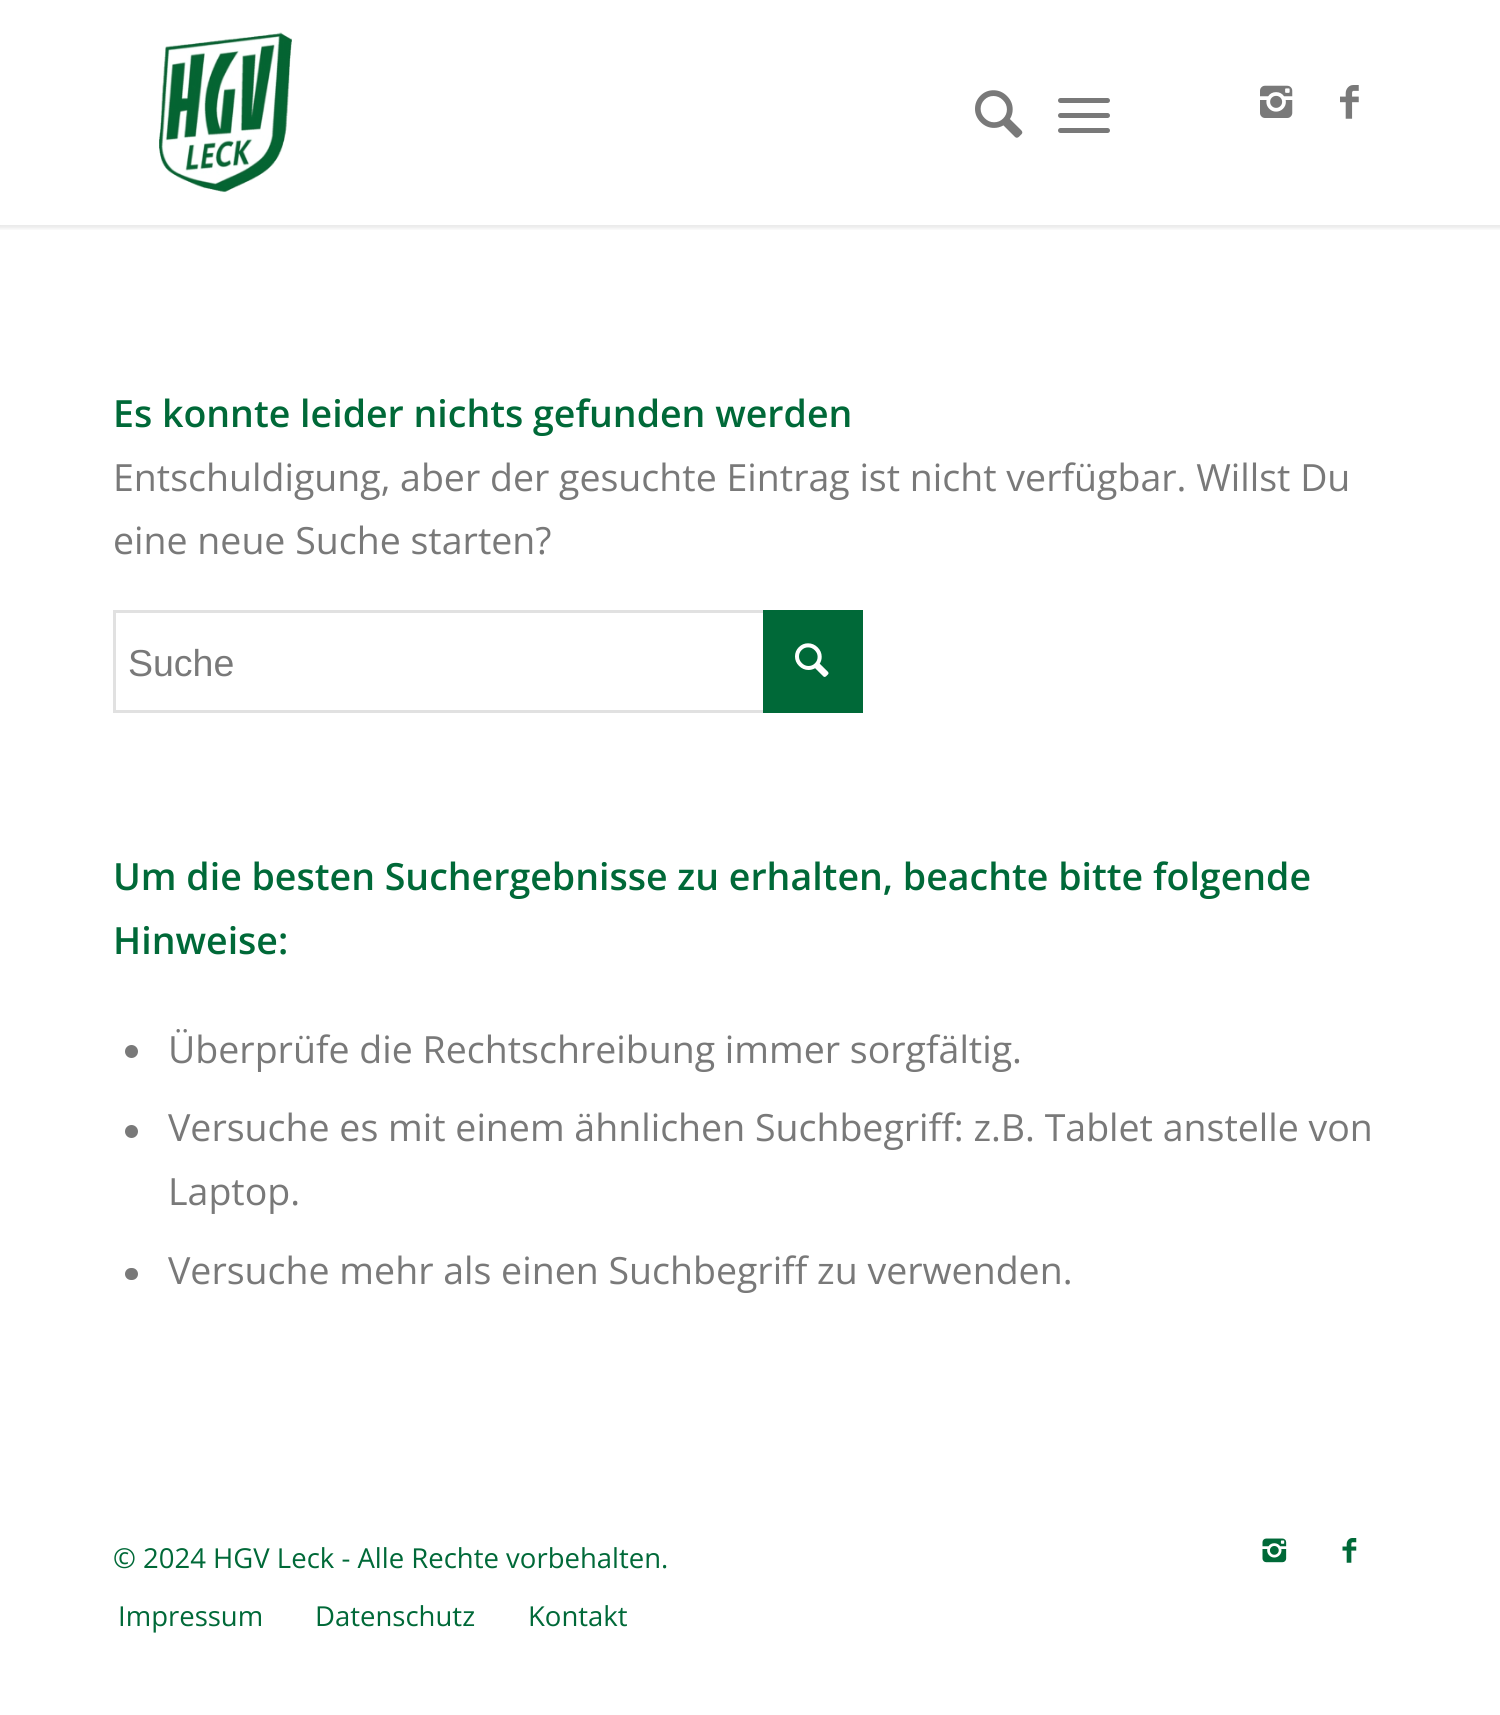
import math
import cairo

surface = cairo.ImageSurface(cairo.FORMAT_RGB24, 1500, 1715)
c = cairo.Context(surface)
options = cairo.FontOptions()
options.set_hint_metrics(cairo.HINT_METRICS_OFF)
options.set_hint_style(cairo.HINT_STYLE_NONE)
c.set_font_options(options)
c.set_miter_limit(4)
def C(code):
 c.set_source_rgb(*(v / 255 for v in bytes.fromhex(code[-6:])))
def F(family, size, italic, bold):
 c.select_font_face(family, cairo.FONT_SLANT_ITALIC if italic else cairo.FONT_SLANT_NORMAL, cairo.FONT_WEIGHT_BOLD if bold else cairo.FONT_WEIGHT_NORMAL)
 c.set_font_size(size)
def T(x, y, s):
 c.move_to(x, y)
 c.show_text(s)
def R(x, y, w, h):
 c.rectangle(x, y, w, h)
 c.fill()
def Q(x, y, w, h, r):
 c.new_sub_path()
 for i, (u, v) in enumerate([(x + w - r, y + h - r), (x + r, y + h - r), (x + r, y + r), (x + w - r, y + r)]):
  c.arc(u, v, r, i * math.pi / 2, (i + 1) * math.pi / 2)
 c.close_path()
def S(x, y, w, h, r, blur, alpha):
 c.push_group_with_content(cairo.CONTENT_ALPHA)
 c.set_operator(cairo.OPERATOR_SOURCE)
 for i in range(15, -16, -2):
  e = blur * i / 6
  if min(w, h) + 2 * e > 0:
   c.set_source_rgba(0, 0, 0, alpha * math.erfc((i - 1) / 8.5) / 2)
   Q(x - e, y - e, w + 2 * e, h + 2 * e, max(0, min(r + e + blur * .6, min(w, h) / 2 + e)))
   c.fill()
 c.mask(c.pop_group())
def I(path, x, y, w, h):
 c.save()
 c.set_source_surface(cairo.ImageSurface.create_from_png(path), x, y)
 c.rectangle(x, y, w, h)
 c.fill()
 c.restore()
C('ffffff')
c.paint()
c.save()
c.rectangle(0,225,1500,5)
c.clip()
C('000000')
S(-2,-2,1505,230,0,2.5,.1)
c.restore()
I('1.png',159,32,133,161)
I('2.png',975,90,48,48)
C('797979')
Q(1058,113,52,5,2.5)
c.fill()
Q(1058,98,52,5,2.5)
c.fill()
Q(1058,128,52,5,2.5)
c.fill()
I('3.png',1260,85,33,33)
I('4.png',1340,85,19,34)
F('Open Sans SemiBold',37.5,0,0)
C('006938')
T(113,427,'Es konnte leider nichts gefunden werden')
F('Open Sans',37.5,0,0)
C('797979')
T(113,491,'Entschuldigung, aber der gesuchte Eintrag ist nicht verfügbar. Willst Du')
T(113,554,'eine neue Suche starten?')
c.rectangle(114.5,611.5,747,100)
C('e1e1e1')
c.set_line_width(3)
c.stroke()
F('Liberation Sans',37.5,0,0)
C('797979')
T(128,676,'Suche')
C('006938')
R(763,610,100,103)
I('5.png',795,643,34,34)
F('Open Sans SemiBold',37.5,0,0)
T(113,890,'Um die besten Suchergebnisse zu erhalten, beachte bitte folgende')
T(113,954,'Hinweise:')
C('797979')
c.new_path()
c.arc(131.5,1051.5,6.5,0,2 * math.pi)
c.fill()
F('Open Sans',37.5,0,0)
T(168,1063,'Überprüfe die Rechtschreibung immer sorgfältig.')
c.new_path()
c.arc(131.5,1131.5,6.5,0,2 * math.pi)
c.fill()
T(168,1141,'Versuche es mit einem ähnlichen Suchbegriff: z.B. Tablet anstelle von')
T(168,1205,'Laptop.')
Q(125,1268,13,12,6)
c.fill()
T(168,1284,'Versuche mehr als einen Suchbegriff zu verwenden.')
F('Open Sans',27.5,0,0)
C('006938')
T(113,1568,'© 2024 HGV Leck - Alle Rechte vorbehalten.')
I('6.png',1262,1538,25,25)
I('7.png',1342,1538,15,25)
T(118,1626,'Impressum')
T(315,1626,'Datenschutz')
T(528,1626,'Kontakt')
surface.write_to_png('o.png')
